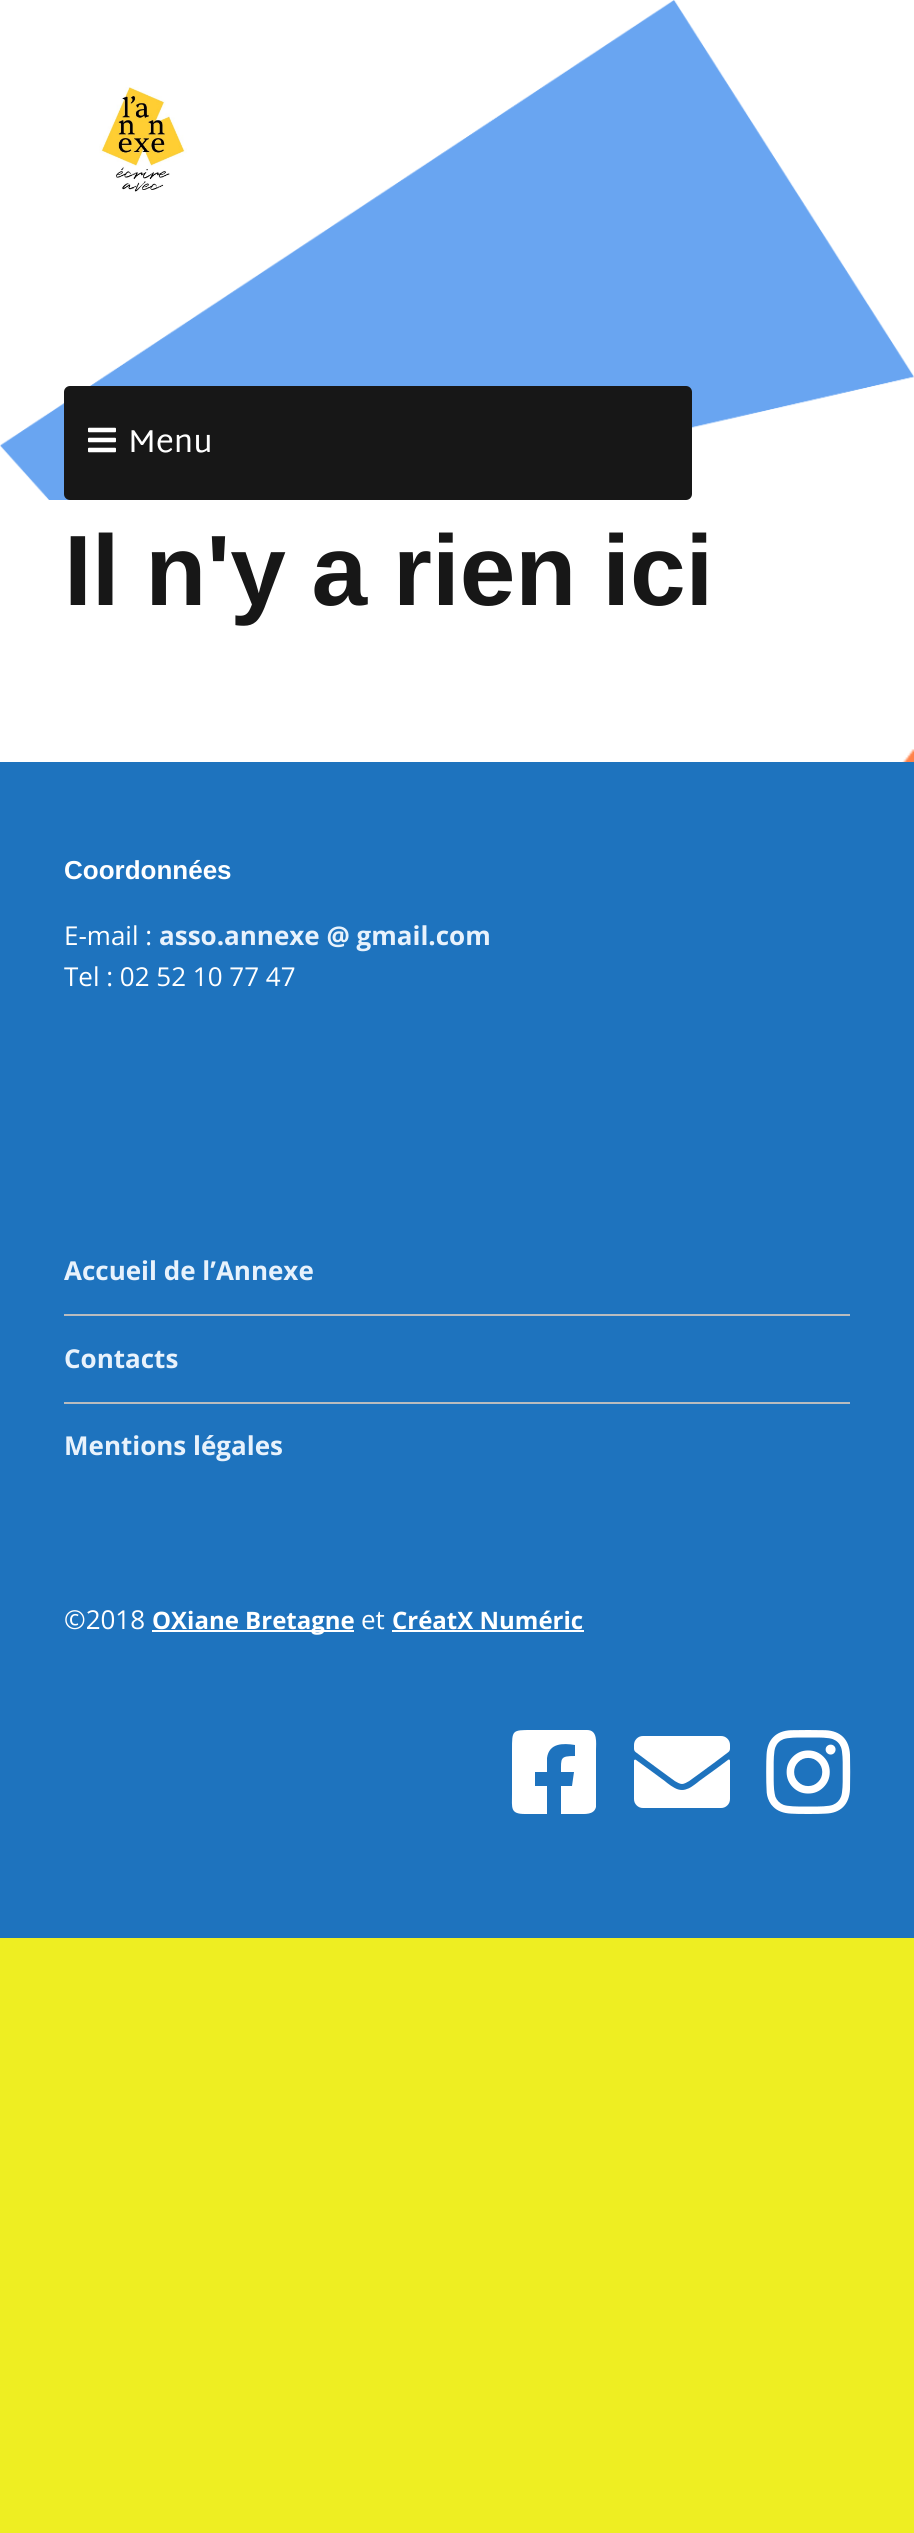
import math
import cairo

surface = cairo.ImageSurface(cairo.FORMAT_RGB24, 914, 2533)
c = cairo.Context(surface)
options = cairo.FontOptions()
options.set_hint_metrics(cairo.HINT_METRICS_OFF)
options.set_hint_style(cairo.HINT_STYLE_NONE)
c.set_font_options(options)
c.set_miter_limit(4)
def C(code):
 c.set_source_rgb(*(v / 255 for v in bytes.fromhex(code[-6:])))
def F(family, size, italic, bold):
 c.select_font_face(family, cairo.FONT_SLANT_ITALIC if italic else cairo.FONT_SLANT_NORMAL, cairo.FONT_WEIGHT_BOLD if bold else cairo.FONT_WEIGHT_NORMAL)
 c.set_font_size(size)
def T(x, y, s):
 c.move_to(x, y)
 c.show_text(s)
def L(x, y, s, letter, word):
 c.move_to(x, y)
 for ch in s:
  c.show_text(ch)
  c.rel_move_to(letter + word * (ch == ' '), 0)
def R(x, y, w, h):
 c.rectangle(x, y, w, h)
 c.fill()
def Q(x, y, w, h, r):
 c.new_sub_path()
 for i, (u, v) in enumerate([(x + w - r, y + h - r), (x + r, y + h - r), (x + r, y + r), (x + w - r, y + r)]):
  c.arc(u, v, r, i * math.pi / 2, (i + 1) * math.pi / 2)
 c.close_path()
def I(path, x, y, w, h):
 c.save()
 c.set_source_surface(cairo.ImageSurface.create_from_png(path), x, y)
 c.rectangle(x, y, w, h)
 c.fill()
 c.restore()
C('eeee22')
c.paint()
C('ffffff')
R(0,0,914,762)
I('1.png',0,0,914,500)
I('2.png',99,87,88,105)
C('171717')
Q(64,386,628,114,6)
c.fill()
I('3.png',88,427,28,26)
F('Martel Sans',32,0,0)
C('ffffff')
T(128,452,'Menu')
I('4.png',902,749,12,13)
F('Liberation Sans',100,0,1)
C('171717')
L(64,605,'Il n\'y a rien ici',0,-2)
C('1e73be')
R(0,762,914,1176)
F('Liberation Sans',26,0,1)
C('ffffff')
T(64,879,'Coordonnées')
F('Open Sans',26,0,0)
T(64,945,'E-mail :')
F('Open Sans',26,0,1)
C('e8f2fc')
T(159,945,'asso.annexe @ gmail.com')
F('Open Sans',26,0,0)
C('ffffff')
T(64,986,'Tel : 02 52 10 77 47')
C('b9bcbf')
R(64,1314,786,2)
F('Open Sans',26,0,1)
C('e8f2fc')
T(64,1280,'Accueil de l’Annexe')
C('b9bcbf')
R(64,1402,786,2)
C('e8f2fc')
T(64,1368,'Contacts')
T(64,1455,'Mentions légales')
F('Open Sans',26,0,0)
C('ffffff')
T(64,1629,'©2018')
R(152,1630,202,2)
F('Open Sans',24,0,1)
T(152,1629,'OXiane Bretagne')
F('Open Sans',26,0,0)
T(361,1629,'et')
F('Open Sans',24,0,1)
T(392,1629,'CréatX Numéric')
R(392,1630,192,2)
c.new_path()
c.move_to(587,1730)
c.curve_to(598,1730,596,1743,596,1750)
c.line_to(596,1807)
c.curve_to(594,1815,585,1814,578,1814)
c.line_to(561,1814)
c.line_to(561,1786)
c.line_to(572,1786)
c.line_to(574,1772)
c.line_to(561,1772)
c.curve_to(561,1758,560,1756,575,1756)
c.line_to(575,1745)
c.curve_to(563,1743,549,1743,547,1758)
c.line_to(547,1772)
c.line_to(535,1772)
c.line_to(535,1786)
c.line_to(547,1786)
c.line_to(547,1814)
c.line_to(525,1814)
c.curve_to(510,1814,512,1808,512,1794)
c.line_to(512,1750)
c.curve_to(512,1730,512,1730,532,1730)
c.close_path()
c.fill()
I('5.png',634,1736,96,72)
I('6.png',766,1730,85,84)
surface.write_to_png('o.png')
